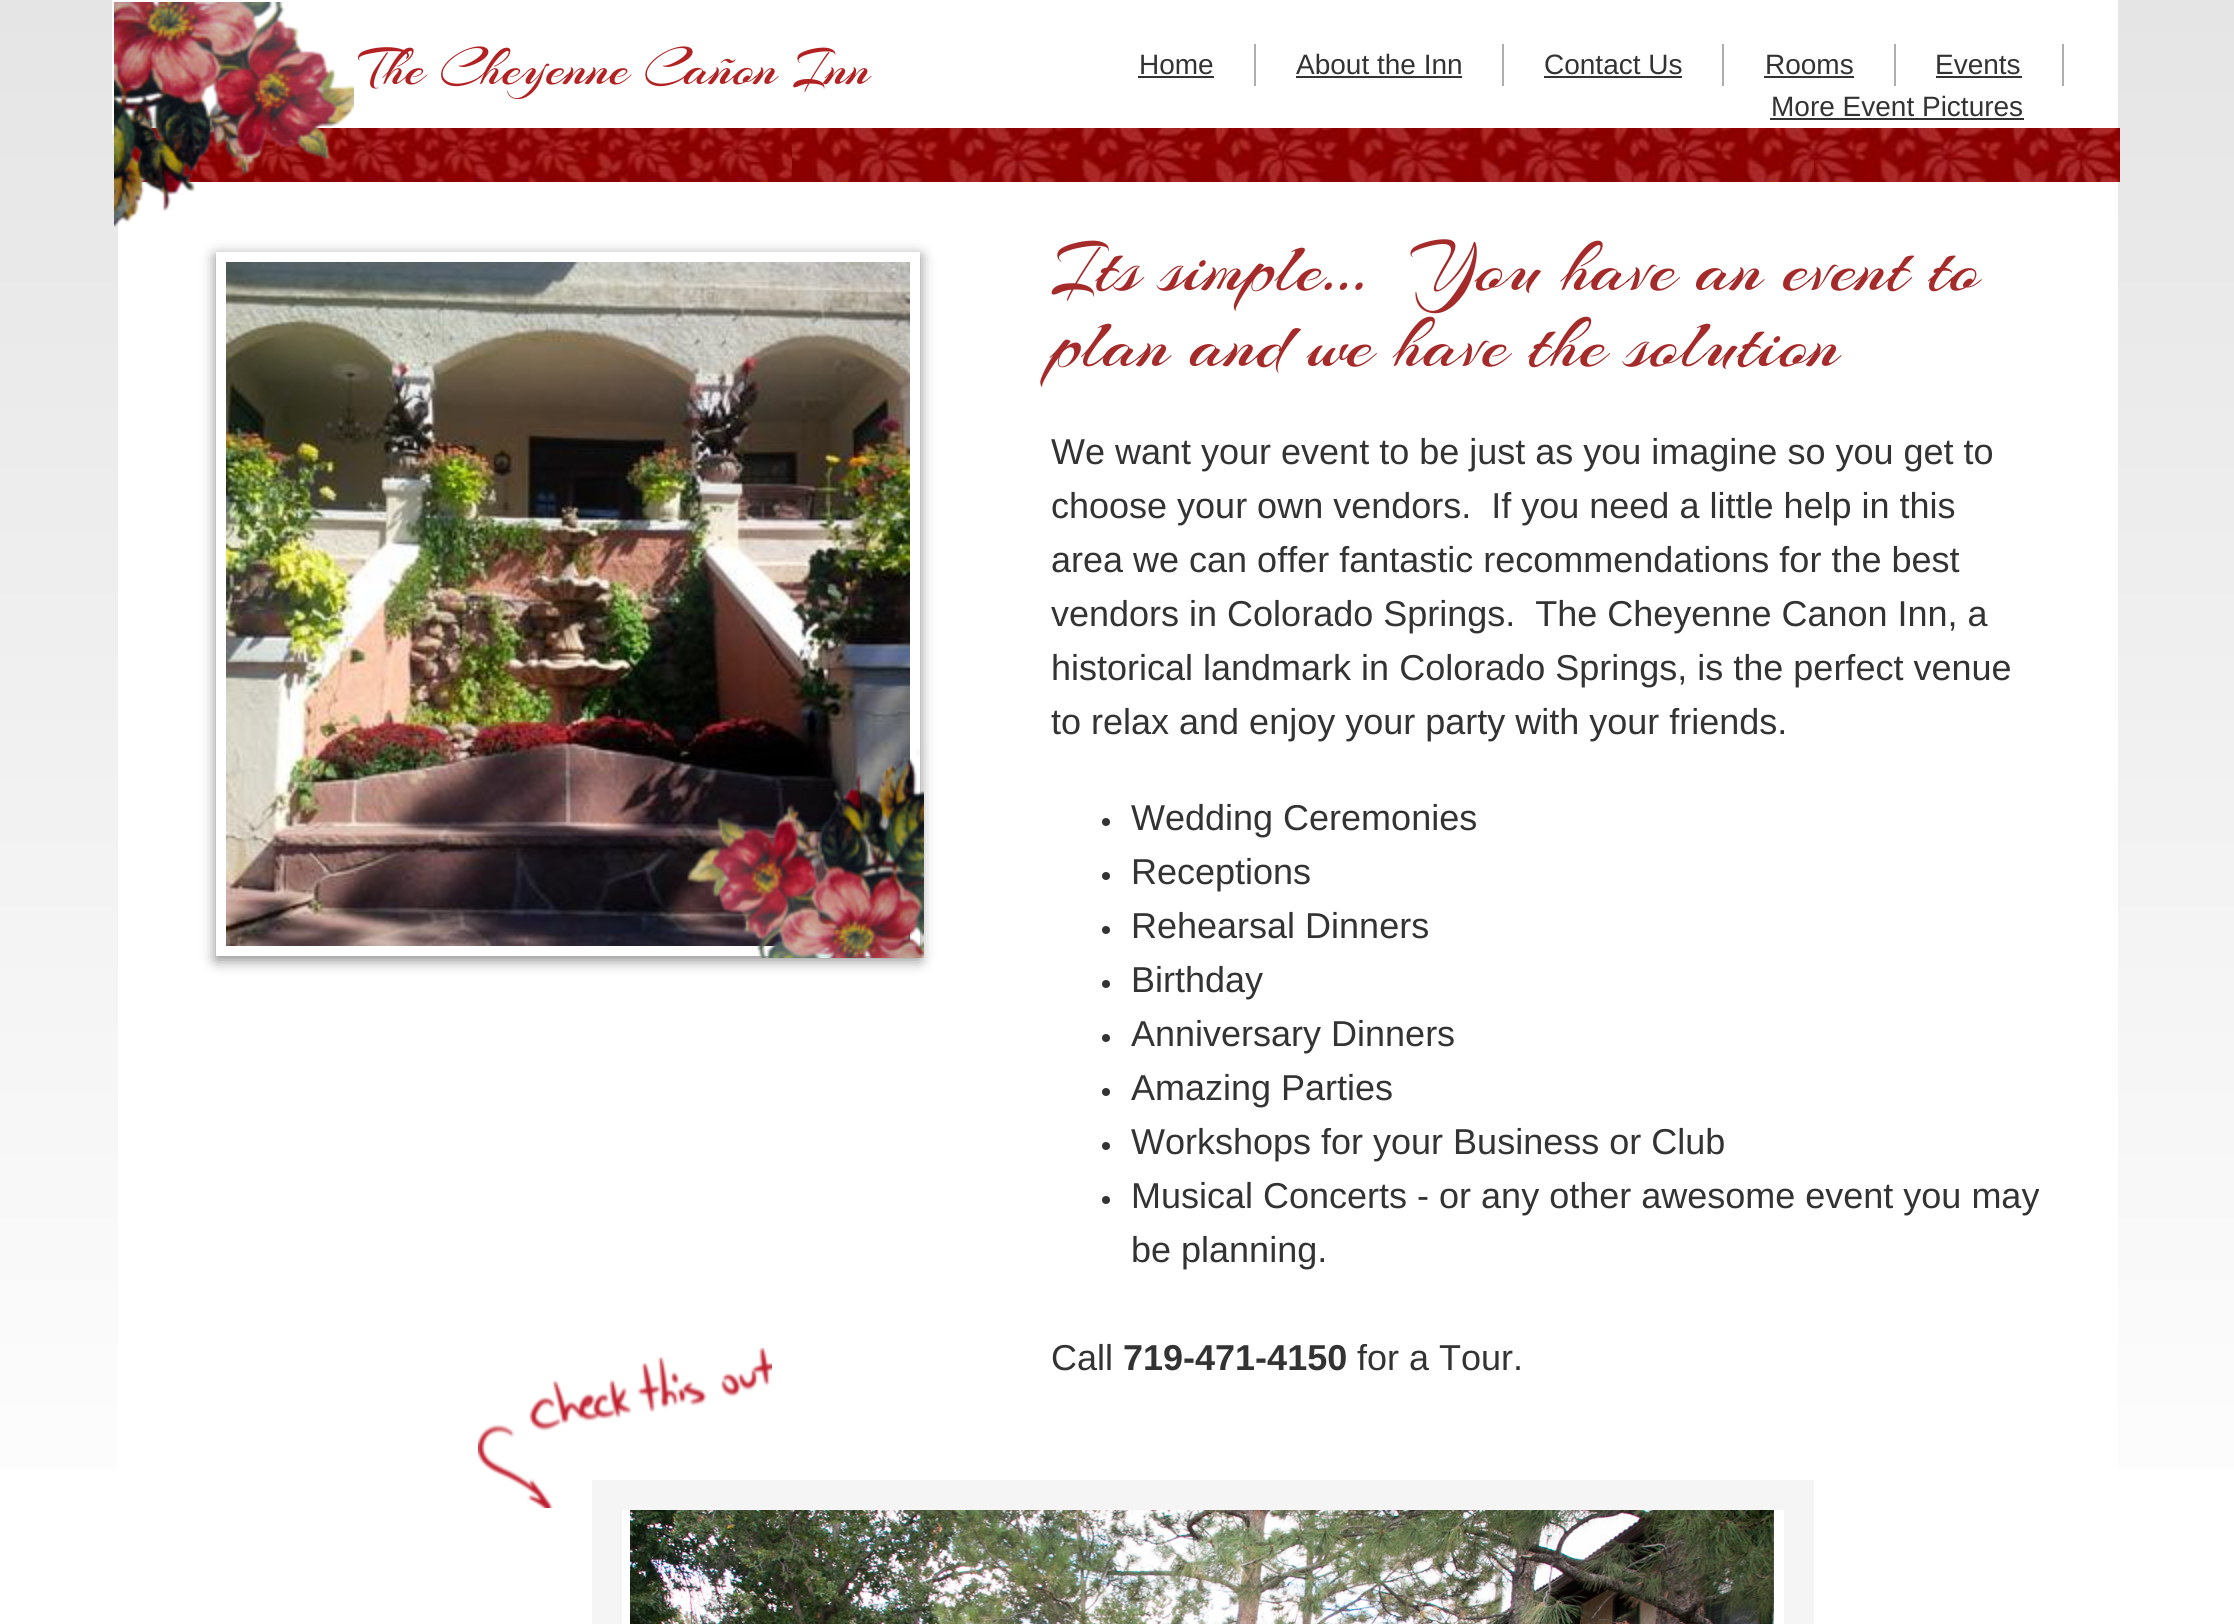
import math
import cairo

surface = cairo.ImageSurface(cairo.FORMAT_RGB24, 2234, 1624)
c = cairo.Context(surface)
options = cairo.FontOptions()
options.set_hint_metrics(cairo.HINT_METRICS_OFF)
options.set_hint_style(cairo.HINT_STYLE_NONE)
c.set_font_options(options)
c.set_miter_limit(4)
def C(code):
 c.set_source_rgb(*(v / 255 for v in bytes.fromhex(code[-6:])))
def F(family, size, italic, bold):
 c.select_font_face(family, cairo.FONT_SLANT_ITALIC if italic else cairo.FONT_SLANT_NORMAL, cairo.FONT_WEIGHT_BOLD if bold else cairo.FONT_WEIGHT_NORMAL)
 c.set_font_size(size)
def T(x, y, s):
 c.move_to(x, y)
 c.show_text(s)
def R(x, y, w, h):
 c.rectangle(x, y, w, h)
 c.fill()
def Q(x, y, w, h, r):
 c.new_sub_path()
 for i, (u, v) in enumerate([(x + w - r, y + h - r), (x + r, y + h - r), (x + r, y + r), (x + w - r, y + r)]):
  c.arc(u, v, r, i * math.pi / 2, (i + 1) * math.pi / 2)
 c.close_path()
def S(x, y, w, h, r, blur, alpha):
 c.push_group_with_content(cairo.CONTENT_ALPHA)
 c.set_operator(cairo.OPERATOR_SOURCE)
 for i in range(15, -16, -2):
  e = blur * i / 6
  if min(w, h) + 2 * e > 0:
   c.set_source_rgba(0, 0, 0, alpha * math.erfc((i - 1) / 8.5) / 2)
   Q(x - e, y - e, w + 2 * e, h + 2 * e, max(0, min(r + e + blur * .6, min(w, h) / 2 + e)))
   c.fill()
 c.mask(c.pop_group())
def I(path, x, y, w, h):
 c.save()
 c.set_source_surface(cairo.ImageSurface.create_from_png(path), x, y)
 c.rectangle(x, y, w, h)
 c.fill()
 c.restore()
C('ffffff')
c.paint()
gradient = cairo.LinearGradient(1117,0,1117,1624)
gradient.add_color_stop_rgba(0,0.898,0.898,0.898,1)
gradient.add_color_stop_rgba(1,1,1,1,1)
c.set_source(gradient)
R(0,0,2234,1468)
C('ffffff')
R(118,182,2000,1286)
R(112,0,2006,134)
I('2.png',129,128,663,54)
I('1.png',114,2,240,225)
F('Arizonia',56,0,0)
C('b22222')
T(359,84,'The Cheyenne Cañon Inn')
C('aeaeae')
R(1254,44,2,42)
F('Liberation Sans',28,0,0)
C('333333')
T(1139,74,'Home')
R(1138,76,76,2)
C('aeaeae')
R(1502,44,2,42)
C('333333')
T(1296,74,'About the Inn')
R(1296,76,166,2)
C('aeaeae')
R(1722,44,2,42)
C('333333')
T(1544,74,'Contact Us')
R(1544,76,138,2)
C('aeaeae')
R(1894,44,2,42)
C('333333')
T(1765,74,'Rooms')
R(1764,76,90,2)
C('aeaeae')
R(2062,44,2,42)
C('333333')
T(1935,74,'Events')
R(1936,76,86,2)
T(1771,116,'More Event Pictures')
R(1770,118,254,2)
I('3.png',792,128,1328,54)
c.save()
c.set_fill_rule(cairo.FILL_RULE_EVEN_ODD)
c.new_path()
c.move_to(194,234)
c.line_to(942,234)
c.line_to(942,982)
c.line_to(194,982)
c.close_path()
c.move_to(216,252)
c.line_to(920,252)
c.line_to(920,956)
c.line_to(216,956)
c.close_path()
c.clip()
C('323232')
S(216,256,704,704,0,7,.6)
c.restore()
I('4.png',226,262,684,684)
F('Arizonia',76,0,0)
C('a52a2a')
T(1051,290,'Its simple...  You have an event to')
T(1051,366,'plan and we have the solution')
F('Liberation Sans',36,0,0)
C('333333')
T(1051,464,'We want your event to be just as you imagine so you get to')
T(1051,518,'choose your own vendors.  If you need a little help in this')
T(1051,572,'area we can offer fantastic recommendations for the best')
T(1051,626,'vendors in Colorado Springs.  The Cheyenne Canon Inn, a')
T(1051,680,'historical landmark in Colorado Springs, is the perfect venue')
T(1051,734,'to relax and enjoy your party with your friends.')
c.new_path()
c.arc(1106,822,4,0,2 * math.pi)
c.fill()
T(1131,830,'Wedding Ceremonies')
c.new_path()
c.arc(1106,876,4,0,2 * math.pi)
c.fill()
T(1131,884,'Receptions')
c.new_path()
c.arc(1106,930,4,0,2 * math.pi)
c.fill()
T(1131,938,'Rehearsal Dinners')
c.new_path()
c.arc(1106,984,4,0,2 * math.pi)
c.fill()
T(1131,992,'Birthday')
c.new_path()
c.arc(1106,1038,4,0,2 * math.pi)
c.fill()
T(1131,1046,'Anniversary Dinners')
c.new_path()
c.arc(1106,1092,4,0,2 * math.pi)
c.fill()
T(1131,1100,'Amazing Parties')
c.new_path()
c.arc(1106,1146,4,0,2 * math.pi)
c.fill()
T(1131,1154,'Workshops for your Business or Club')
c.new_path()
c.arc(1106,1200,4,0,2 * math.pi)
c.fill()
T(1131,1208,'Musical Concerts - or any other awesome event you may')
T(1131,1262,'be planning.')
T(1051,1370,'Call')
F('Liberation Sans',36,0,1)
T(1123,1370,'719-471-4150')
F('Liberation Sans',36,0,0)
T(1357,1370,'for a Tour.')
I('5.png',687,750,237,208)
c.rectangle(607,1495,1192,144)
C('f5f5f5')
c.set_line_width(30)
c.stroke()
I('6.png',478,1348,294,160)
I('7.png',630,1510,1144,114)
surface.write_to_png('o.png')
